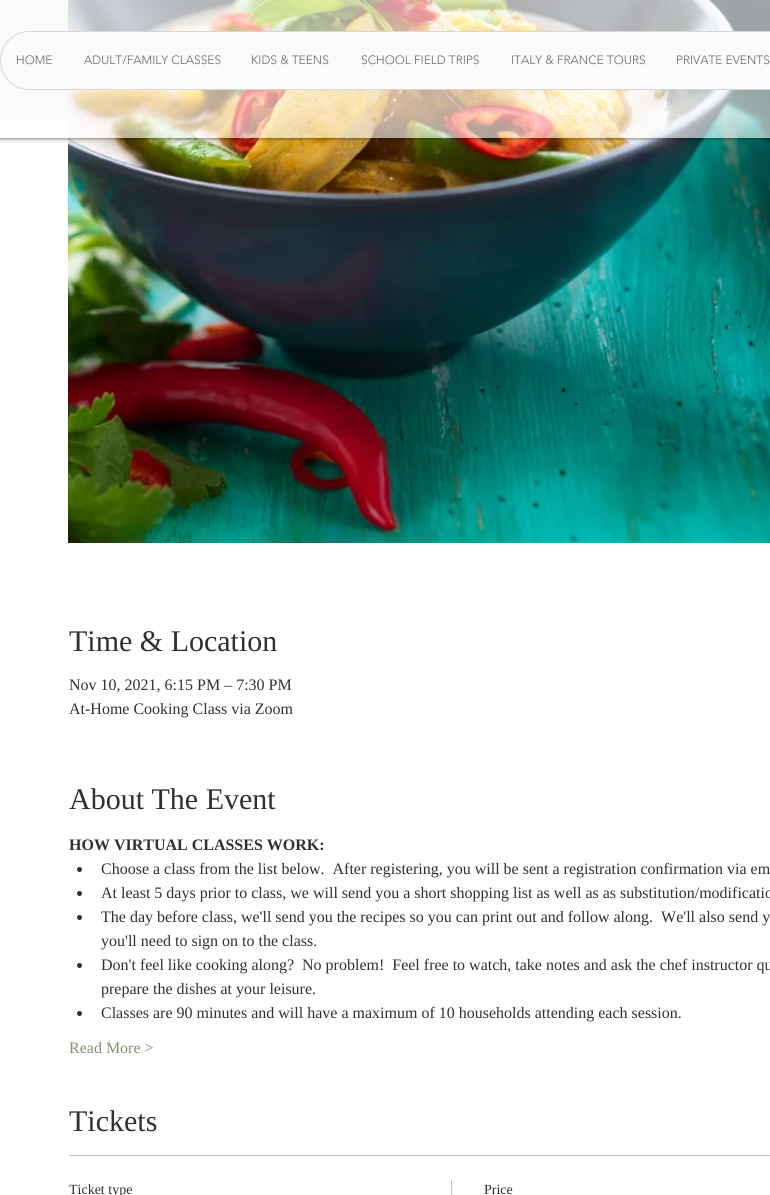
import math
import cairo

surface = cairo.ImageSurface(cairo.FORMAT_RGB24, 770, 1195)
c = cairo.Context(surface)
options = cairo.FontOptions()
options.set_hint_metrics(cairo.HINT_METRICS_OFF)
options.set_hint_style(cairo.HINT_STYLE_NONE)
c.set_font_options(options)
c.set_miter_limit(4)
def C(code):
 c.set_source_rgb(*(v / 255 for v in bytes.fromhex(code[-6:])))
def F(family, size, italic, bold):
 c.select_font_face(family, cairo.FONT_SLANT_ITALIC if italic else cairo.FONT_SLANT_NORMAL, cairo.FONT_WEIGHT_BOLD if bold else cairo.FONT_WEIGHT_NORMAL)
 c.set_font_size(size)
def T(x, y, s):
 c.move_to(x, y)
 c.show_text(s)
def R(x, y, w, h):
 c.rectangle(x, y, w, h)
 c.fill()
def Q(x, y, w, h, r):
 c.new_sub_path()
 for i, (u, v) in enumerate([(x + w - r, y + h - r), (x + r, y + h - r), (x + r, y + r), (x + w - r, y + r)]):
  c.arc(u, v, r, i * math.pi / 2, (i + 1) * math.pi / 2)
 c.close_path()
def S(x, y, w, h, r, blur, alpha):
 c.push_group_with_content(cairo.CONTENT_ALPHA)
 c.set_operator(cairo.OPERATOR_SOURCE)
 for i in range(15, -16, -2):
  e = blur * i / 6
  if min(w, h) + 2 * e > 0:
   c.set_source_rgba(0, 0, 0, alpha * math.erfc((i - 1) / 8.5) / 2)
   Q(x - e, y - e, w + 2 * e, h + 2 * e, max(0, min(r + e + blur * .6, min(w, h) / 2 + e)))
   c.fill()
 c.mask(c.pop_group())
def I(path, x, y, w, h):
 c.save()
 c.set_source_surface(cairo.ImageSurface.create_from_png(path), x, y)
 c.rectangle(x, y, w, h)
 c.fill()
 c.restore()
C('ffffff')
c.paint()
C('f2f4f1')
R(0,0,68,121)
I('1.png',68,0,702,543)
c.save()
c.rectangle(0,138,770,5)
c.clip()
C('000000')
S(0,0,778,138,0,2.5,.7)
c.restore()
c.set_source_rgba(1,1,1,0.6)
R(0,0,770,138)
C('fafafa')
Q(.5,31.5,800,58,29)
c.fill_preserve()
C('d7d7d7')
c.set_line_width(1)
c.stroke()
F('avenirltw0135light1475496 Light',12,0,0)
C('696969')
T(16,64,'HOME')
T(84,64,'ADULT/FAMILY CLASSES')
T(251,64,'KIDS & TEENS')
T(361,64,'SCHOOL FIELD TRIPS')
T(511,64,'ITALY & FRANCE TOURS')
T(676,64,'PRIVATE EVENTS')
F('Liberation Serif',30,0,0)
C('303030')
T(69,651,'Time & Location')
F('Liberation Serif',16,0,0)
T(69,690,'Nov 10, 2021, 6:15 PM – 7:30 PM')
T(69,714,'At-Home Cooking Class via Zoom')
F('Liberation Serif',30,0,0)
T(69,809,'About The Event')
F('Liberation Serif',16,0,1)
T(69,850,'HOW VIRTUAL CLASSES WORK:')
c.new_path()
c.arc(79.5,869.5,2.5,0,2 * math.pi)
c.fill()
F('Liberation Serif',16,0,0)
T(101,874,'Choose a class from the list below.  After registering, you will be sent a registration confirmation via em')
c.new_path()
c.arc(79.5,893.5,2.5,0,2 * math.pi)
c.fill()
T(101,898,'At least 5 days prior to class, we will send you a short shopping list as well as as substitution/modificatio')
c.new_path()
c.arc(79.5,917.5,2.5,0,2 * math.pi)
c.fill()
T(101,922,'The day before class, we\'ll send you the recipes so you can print out and follow along.  We\'ll also send y')
T(101,946,'you\'ll need to sign on to the class.')
c.new_path()
c.arc(79.5,965.5,2.5,0,2 * math.pi)
c.fill()
T(101,970,'Don\'t feel like cooking along?  No problem!  Feel free to watch, take notes and ask the chef instructor qu')
T(101,994,'prepare the dishes at your leisure.')
c.new_path()
c.arc(79.5,1013.5,2.5,0,2 * math.pi)
c.fill()
T(101,1018,'Classes are 90 minutes and will have a maximum of 10 households attending each session.')
C('7d9174')
T(69,1053,'Read More >')
F('Liberation Serif',30,0,0)
C('303030')
T(69,1131,'Tickets')
C('c1c1c1')
R(69,1155,701,1)
F('Liberation Serif',14,0,0)
C('303030')
T(69,1194,'Ticket type')
C('c1c1c1')
R(451,1180,1,15)
C('303030')
T(484,1194,'Price')
surface.write_to_png('o.png')
